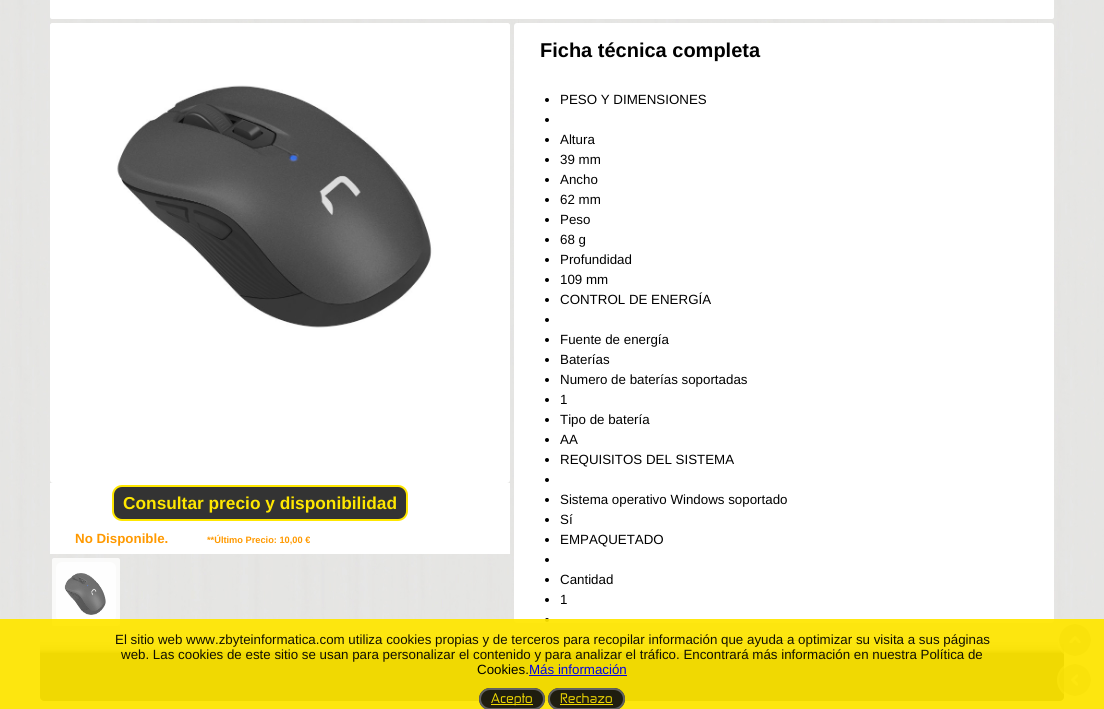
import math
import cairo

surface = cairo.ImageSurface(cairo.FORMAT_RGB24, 1104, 709)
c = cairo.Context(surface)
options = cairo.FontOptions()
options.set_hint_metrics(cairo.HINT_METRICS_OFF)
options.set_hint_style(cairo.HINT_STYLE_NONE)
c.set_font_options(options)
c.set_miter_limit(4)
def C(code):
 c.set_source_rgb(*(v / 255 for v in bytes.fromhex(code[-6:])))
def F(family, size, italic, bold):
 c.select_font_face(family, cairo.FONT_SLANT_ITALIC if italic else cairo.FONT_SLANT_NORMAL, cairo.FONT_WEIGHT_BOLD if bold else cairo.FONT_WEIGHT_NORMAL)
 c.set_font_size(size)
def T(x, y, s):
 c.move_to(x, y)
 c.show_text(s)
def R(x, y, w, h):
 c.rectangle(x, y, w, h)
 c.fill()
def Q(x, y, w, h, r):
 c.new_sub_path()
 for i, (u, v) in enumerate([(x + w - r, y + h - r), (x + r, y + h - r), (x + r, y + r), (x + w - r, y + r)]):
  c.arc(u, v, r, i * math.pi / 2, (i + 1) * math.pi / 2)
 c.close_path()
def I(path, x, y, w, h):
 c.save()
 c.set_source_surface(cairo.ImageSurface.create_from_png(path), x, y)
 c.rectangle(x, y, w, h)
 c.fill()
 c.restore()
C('ffffff')
c.paint()
I('1.png',0,0,1104,709)
C('ffffff')
Q(50,-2,1004,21,2)
c.fill()
Q(50,23,460,460,3)
c.fill()
I('2.png',50,23,460,305)
Q(514,23,540,600,3)
c.fill()
F('Liberation Sans',20,0,1)
C('000000')
T(540,57,'Ficha técnica completa')
c.new_path()
c.arc(547,100,2,0,2 * math.pi)
c.fill()
F('Liberation Sans',13.33,0,0)
T(560,104,'PESO Y DIMENSIONES')
c.new_path()
c.arc(547,120,2,0,2 * math.pi)
c.fill()
c.arc(547,140,2,0,2 * math.pi)
c.fill()
T(560,144,'Altura')
c.new_path()
c.arc(547,160,2,0,2 * math.pi)
c.fill()
T(560,164,'39 mm')
c.new_path()
c.arc(547,180,2,0,2 * math.pi)
c.fill()
T(560,184,'Ancho')
c.new_path()
c.arc(547,200,2,0,2 * math.pi)
c.fill()
T(560,204,'62 mm')
c.new_path()
c.arc(547,220,2,0,2 * math.pi)
c.fill()
T(560,224,'Peso')
c.new_path()
c.arc(547,240,2,0,2 * math.pi)
c.fill()
T(560,244,'68 g')
c.new_path()
c.arc(547,260,2,0,2 * math.pi)
c.fill()
T(560,264,'Profundidad')
c.new_path()
c.arc(547,280,2,0,2 * math.pi)
c.fill()
T(560,284,'109 mm')
c.new_path()
c.arc(547,300,2,0,2 * math.pi)
c.fill()
T(560,304,'CONTROL DE ENERGÍA')
c.new_path()
c.arc(547,320,2,0,2 * math.pi)
c.fill()
c.arc(547,340,2,0,2 * math.pi)
c.fill()
T(560,344,'Fuente de energía')
c.new_path()
c.arc(547,360,2,0,2 * math.pi)
c.fill()
T(560,364,'Baterías')
c.new_path()
c.arc(547,380,2,0,2 * math.pi)
c.fill()
T(560,384,'Numero de baterías soportadas')
c.new_path()
c.arc(547,400,2,0,2 * math.pi)
c.fill()
T(560,404,'1')
c.new_path()
c.arc(547,420,2,0,2 * math.pi)
c.fill()
T(560,424,'Tipo de batería')
c.new_path()
c.arc(547,440,2,0,2 * math.pi)
c.fill()
T(560,444,'AA')
c.new_path()
c.arc(547,460,2,0,2 * math.pi)
c.fill()
T(560,464,'REQUISITOS DEL SISTEMA')
c.new_path()
c.arc(547,480,2,0,2 * math.pi)
c.fill()
c.arc(547,500,2,0,2 * math.pi)
c.fill()
T(560,504,'Sistema operativo Windows soportado')
c.new_path()
c.arc(547,520,2,0,2 * math.pi)
c.fill()
T(560,524,'Sí')
c.new_path()
c.arc(547,540,2,0,2 * math.pi)
c.fill()
T(560,544,'EMPAQUETADO')
c.new_path()
c.arc(547,560,2,0,2 * math.pi)
c.fill()
c.arc(547,580,2,0,2 * math.pi)
c.fill()
T(560,584,'Cantidad')
c.new_path()
c.arc(547,600,2,0,2 * math.pi)
c.fill()
T(560,604,'1')
c.new_path()
c.arc(547,620,2,0,2 * math.pi)
c.fill()
C('ffffff')
R(50,483,460,71)
C('333333')
Q(113,486,294,34,9)
c.fill_preserve()
C('ffe700')
c.stroke()
F('Liberation Sans',17.3,0,1)
T(123,509,'Consultar precio y disponibilidad')
F('Liberation Sans',13.33,0,1)
C('ff9900')
T(75,543,'No Disponible.')
F('Liberation Sans',9.25,0,1)
T(207,543,'**Último Precio: 10,00 €')
c.set_source_rgba(1,1,1,0.8)
Q(52,558,68,68,2)
c.fill()
I('3.png',56,562,60,60)
C('063cc0')
R(758,640,52,1)
I('6.png',40,642,1024,11)
C('222222')
c.new_path()
c.move_to(40,653)
c.line_to(1064,653)
c.line_to(1064,697)
c.curve_to(1064,699,1062,701,1060,701)
c.line_to(44,701)
c.curve_to(42,701,40,699,40,697)
c.close_path()
c.fill()
c.set_source_rgba(0.867,0.867,0.867,0.55)
c.arc(1075,640,18,0,2 * math.pi)
c.fill()
I('4.png',1059,624,32,32)
c.arc(1075,680,18,0,2 * math.pi)
c.fill()
I('5.png',1059,664,32,32)
c.set_source_rgba(1,0.906,0,0.93)
R(0,619,1104,90)
F('Liberation Sans',13.33,0,0)
C('121001')
T(115,644,'El sitio web www.zbyteinformatica.com utiliza cookies propias y de terceros para recopilar información que ayuda a optimizar su visita a sus páginas')
T(121,659,'web. Las cookies de este sitio se usan para personalizar el contenido y para analizar el tráfico. Encontrará más información en nuestra Política de')
C('000000')
T(477,674,'Cookies.')
C('0202e0')
T(529,674,'Más información')
R(529,675,98,1)
c.set_source_rgba(0.067,0.067,0.067,0.93)
Q(479,688,66,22,11)
c.fill()
Q(480,689,64,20,10)
c.set_source_rgba(0.4,0.4,0.4,0.93)
c.stroke()
C('efd901')
R(491,704,42,1)
F('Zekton',13.33,0,0)
C('f0d901')
T(491,703,'Acepto')
c.set_source_rgba(0.067,0.067,0.067,0.93)
Q(548,688,77,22,11)
c.fill()
Q(549,689,75,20,10)
c.set_source_rgba(0.4,0.4,0.4,0.93)
c.stroke()
C('f0d901')
T(560,703,'Rechazo')
C('efd901')
R(560,704,53,1)
surface.write_to_png('o.png')
